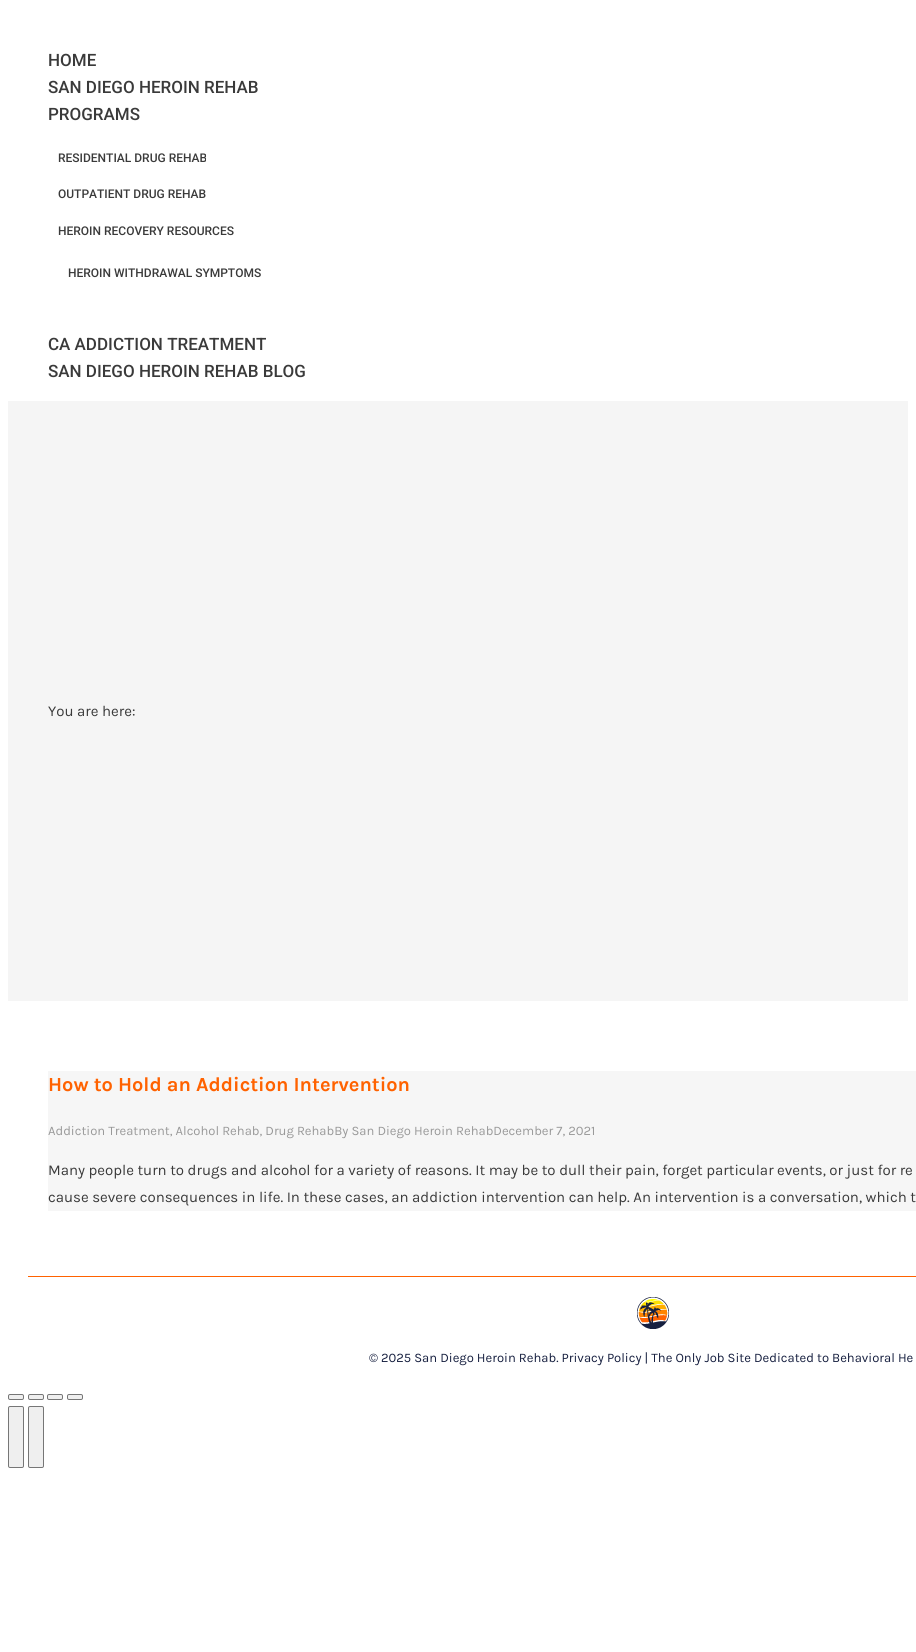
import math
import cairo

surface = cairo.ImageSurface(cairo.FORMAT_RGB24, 916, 1652)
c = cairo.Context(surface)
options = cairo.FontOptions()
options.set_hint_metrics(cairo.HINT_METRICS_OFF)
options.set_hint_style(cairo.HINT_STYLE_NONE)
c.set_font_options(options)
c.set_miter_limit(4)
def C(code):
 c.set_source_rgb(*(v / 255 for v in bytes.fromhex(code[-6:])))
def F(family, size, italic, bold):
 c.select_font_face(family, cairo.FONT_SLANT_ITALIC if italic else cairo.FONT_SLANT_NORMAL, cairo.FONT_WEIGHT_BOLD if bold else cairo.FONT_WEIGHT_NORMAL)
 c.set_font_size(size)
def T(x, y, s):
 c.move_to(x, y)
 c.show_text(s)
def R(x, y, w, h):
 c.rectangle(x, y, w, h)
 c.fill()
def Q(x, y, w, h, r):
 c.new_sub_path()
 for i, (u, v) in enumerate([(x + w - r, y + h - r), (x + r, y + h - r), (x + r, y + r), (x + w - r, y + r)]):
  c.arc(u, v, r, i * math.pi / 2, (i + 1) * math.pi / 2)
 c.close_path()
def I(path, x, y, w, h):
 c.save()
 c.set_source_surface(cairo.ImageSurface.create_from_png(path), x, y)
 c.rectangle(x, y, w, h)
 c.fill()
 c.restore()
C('ffffff')
c.paint()
F('Roboto Medium',17,0,0)
C('3a3a3a')
T(48,66,'HOME')
T(48,93,'SAN DIEGO HEROIN REHAB')
T(48,120,'PROGRAMS')
F('Roboto Medium',12,0,0)
T(58,162,'RESIDENTIAL DRUG REHAB')
T(58,198,'OUTPATIENT DRUG REHAB')
T(58,235,'HEROIN RECOVERY RESOURCES')
T(68,277,'HEROIN WITHDRAWAL SYMPTOMS')
F('Roboto Medium',17,0,0)
T(48,350,'CA ADDICTION TREATMENT')
T(48,377,'SAN DIEGO HEROIN REHAB BLOG')
C('f5f5f5')
R(8,401,900,600)
F('Karla',15,0,0)
C('3a3a3a')
T(48,716,'You are here:')
C('f6f6f6')
R(48,1071,868,140)
F('Karla',20,0,1)
C('ff6200')
T(48,1091,'How to Hold an Addiction Intervention')
F('Karla',13,0,0)
C('999999')
T(48,1135,'Addiction Treatment, Alcohol Rehab, Drug RehabBy San Diego Heroin RehabDecember 7, 2021')
F('Karla',15,0,0)
C('3a3a3a')
T(48,1175,'Many people turn to drugs and alcohol for a variety of reasons. It may be to dull their pain, forget particular events, or just for re')
T(48,1202,'cause severe consequences in life. In these cases, an addiction intervention can help. An intervention is a conversation, which t')
C('ff6200')
R(28,1276,888,1)
I('1.png',637,1297,32,32)
F('Karla',13,0,0)
C('161f3f')
T(369,1362,'© 2025 San Diego Heroin Rehab. Privacy Policy | The Only Job Site Dedicated to Behavioral He')
C('efefef')
Q(8.5,1394.5,15,5,1.5)
c.fill_preserve()
C('767676')
c.set_line_width(1)
c.stroke()
C('efefef')
Q(28.5,1394.5,15,5,1.5)
c.fill_preserve()
C('767676')
c.stroke()
C('efefef')
Q(47.5,1394.5,15,5,1.5)
c.fill_preserve()
C('767676')
c.stroke()
C('efefef')
Q(67.5,1394.5,15,5,1.5)
c.fill_preserve()
C('767676')
c.stroke()
C('efefef')
Q(8.5,1406.5,15,61,1.5)
c.fill_preserve()
C('767676')
c.stroke()
C('efefef')
Q(28.5,1406.5,15,61,1.5)
c.fill_preserve()
C('767676')
c.stroke()
surface.write_to_png('o.png')
